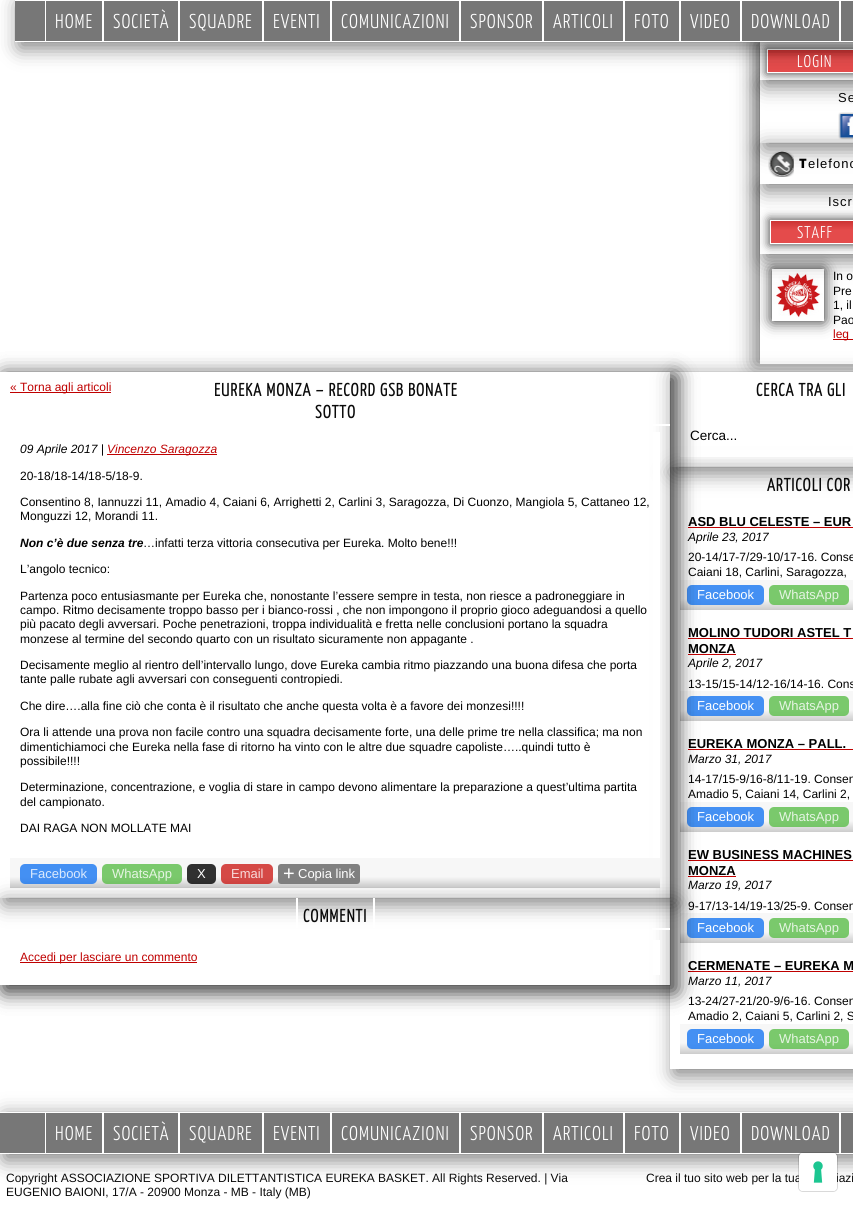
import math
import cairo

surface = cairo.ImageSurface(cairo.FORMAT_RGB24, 853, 1207)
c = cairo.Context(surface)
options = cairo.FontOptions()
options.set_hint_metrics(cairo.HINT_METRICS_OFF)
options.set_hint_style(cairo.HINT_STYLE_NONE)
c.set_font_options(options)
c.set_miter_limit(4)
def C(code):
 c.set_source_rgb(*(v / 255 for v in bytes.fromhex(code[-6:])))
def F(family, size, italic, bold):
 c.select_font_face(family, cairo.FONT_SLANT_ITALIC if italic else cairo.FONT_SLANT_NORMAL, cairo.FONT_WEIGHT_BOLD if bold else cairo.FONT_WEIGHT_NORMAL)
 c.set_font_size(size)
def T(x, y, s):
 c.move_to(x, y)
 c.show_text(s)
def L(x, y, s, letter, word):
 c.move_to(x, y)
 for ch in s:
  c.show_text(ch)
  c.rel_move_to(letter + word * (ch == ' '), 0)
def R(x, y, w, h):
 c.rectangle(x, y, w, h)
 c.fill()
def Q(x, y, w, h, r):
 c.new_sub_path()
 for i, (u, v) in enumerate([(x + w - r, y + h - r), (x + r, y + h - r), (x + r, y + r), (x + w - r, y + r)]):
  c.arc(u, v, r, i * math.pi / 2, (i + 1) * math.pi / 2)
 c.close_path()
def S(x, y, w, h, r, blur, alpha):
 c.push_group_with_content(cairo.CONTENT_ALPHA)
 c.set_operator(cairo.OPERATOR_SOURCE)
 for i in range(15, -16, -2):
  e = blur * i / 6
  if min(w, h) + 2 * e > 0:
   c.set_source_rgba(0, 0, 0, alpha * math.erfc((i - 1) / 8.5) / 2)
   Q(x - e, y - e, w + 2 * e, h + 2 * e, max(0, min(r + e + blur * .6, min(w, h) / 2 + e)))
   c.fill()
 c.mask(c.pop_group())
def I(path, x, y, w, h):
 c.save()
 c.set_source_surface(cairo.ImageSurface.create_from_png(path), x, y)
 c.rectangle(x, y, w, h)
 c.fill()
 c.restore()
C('ffffff')
c.paint()
c.save()
c.rectangle(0,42,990,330)
c.clip()
c.set_fill_rule(cairo.FILL_RULE_EVEN_ODD)
c.new_path()
c.move_to(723,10)
c.line_to(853,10)
c.line_to(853,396)
c.line_to(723,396)
c.close_path()
c.move_to(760,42)
c.line_to(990,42)
c.line_to(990,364)
c.line_to(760,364)
c.close_path()
c.clip()
C('000000')
S(754,41,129,324,0,10,.5)
c.restore()
c.save()
c.set_fill_rule(cairo.FILL_RULE_EVEN_ODD)
c.new_path()
c.move_to(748,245)
c.line_to(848,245)
c.line_to(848,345)
c.line_to(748,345)
c.close_path()
c.move_to(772,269)
c.line_to(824,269)
c.line_to(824,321)
c.line_to(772,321)
c.close_path()
c.clip()
C('1b1b1b')
S(772,269,52,52,0,7.5,1)
c.restore()
I('3.png',773,271,50,47)
c.save()
c.set_fill_rule(cairo.FILL_RULE_EVEN_ODD)
c.new_path()
c.move_to(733,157)
c.line_to(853,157)
c.line_to(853,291)
c.line_to(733,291)
c.close_path()
c.move_to(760,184)
c.line_to(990,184)
c.line_to(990,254)
c.line_to(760,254)
c.close_path()
c.clip()
C('000000')
S(764,188,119,72,0,10,.5)
c.restore()
C('1b1b1b')
S(769,219,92,26,0,5,.8)
gradient = cairo.LinearGradient(815,221,815,243)
gradient.add_color_stop_rgba(0,0.8,0.2,0.2,1)
gradient.add_color_stop_rgba(.4,0.894,0.294,0.294,1)
c.set_source(gradient)
R(771,221,82,22)
c.rectangle(770.5,220.5,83,23)
C('ffffff')
c.set_line_width(1)
c.stroke()
C('000000')
S(764,147,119,43,0,10,.5)
C('ffffff')
R(760,143,93,41)
I('2.png',768,150,26,27)
c.save()
c.set_fill_rule(cairo.FILL_RULE_EVEN_ODD)
c.new_path()
c.move_to(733,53)
c.line_to(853,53)
c.line_to(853,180)
c.line_to(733,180)
c.close_path()
c.move_to(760,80)
c.line_to(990,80)
c.line_to(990,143)
c.line_to(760,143)
c.close_path()
c.clip()
C('000000')
S(764,84,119,65,0,10,.5)
c.restore()
I('1.png',838,112,15,28)
C('000000')
S(764,46,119,40,0,10,.5)
C('ffffff')
R(760,42,93,38)
C('1b1b1b')
S(766,48,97,26,0,5,.8)
gradient = cairo.LinearGradient(815,50,815,72)
gradient.add_color_stop_rgba(0,0.8,0.2,0.2,1)
gradient.add_color_stop_rgba(.4,0.894,0.294,0.294,1)
c.set_source(gradient)
R(768,50,85,22)
c.rectangle(767.5,49.5,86,23)
C('ffffff')
c.stroke()
C('000000')
S(19,4,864,44,0,10,.5)
C('777777')
R(15,1,838,40)
C('ffffff')
R(15,0,30,1)
R(15,41,30,1)
c.rectangle(45.5,.5,57,41)
c.stroke()
F('Yanone Kaffeesatz Light',20,0,0)
L(55,28,'HOME',1,0)
c.rectangle(103.5,.5,75,41)
c.stroke()
L(113,28,'SOCIETÀ',1,0)
c.rectangle(179.5,.5,83,41)
c.stroke()
L(189,28,'SQUADRE',1,0)
c.rectangle(263.5,.5,67,41)
c.stroke()
L(273,28,'EVENTI',1,0)
c.rectangle(331.5,.5,128,41)
c.stroke()
L(341,28,'COMUNICAZIONI',1,0)
c.rectangle(460.5,.5,82,41)
c.stroke()
L(470,28,'SPONSOR',1,0)
c.rectangle(543.5,.5,80,41)
c.stroke()
L(553,28,'ARTICOLI',1,0)
c.rectangle(624.5,.5,55,41)
c.stroke()
L(634,28,'FOTO',1,0)
c.rectangle(680.5,.5,60,41)
c.stroke()
L(690,28,'VIDEO',1,0)
c.rectangle(741.5,.5,98,41)
c.stroke()
L(751,28,'DOWNLOAD',1,0)
c.rectangle(840.5,.5,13,41)
c.stroke()
F('Yanone Kaffeesatz Light',17,0,0)
L(797,67,'LOGIN',1,0)
F('Liberation Sans',13,0,0)
C('0a0a0a')
L(838,102,'Se',1,0)
F('Noto Sans Black',13,0,0)
C('000000')
L(799,168,'T',1,0)
F('Liberation Sans',13,0,0)
L(808,168,'elefono',1,0)
C('0a0a0a')
L(828,206,'Iscr',1,0)
F('Yanone Kaffeesatz Light',17,0,0)
C('ffffff')
L(797,238,'STAFF',1,0)
F('Liberation Sans',12,0,0)
C('000000')
T(833,280,'In o')
T(833,295,'Pre')
T(833,309,'1, il')
T(833,324,'Pao')
C('bf0000')
R(833,339,20,1)
T(833,338,'leg')
c.save()
c.set_fill_rule(cairo.FILL_RULE_EVEN_ODD)
c.new_path()
c.move_to(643,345)
c.line_to(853,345)
c.line_to(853,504)
c.line_to(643,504)
c.close_path()
c.move_to(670,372)
c.line_to(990,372)
c.line_to(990,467)
c.line_to(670,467)
c.close_path()
c.clip()
C('000000')
S(674,376,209,97,0,10,.5)
c.restore()
c.save()
c.set_fill_rule(cairo.FILL_RULE_EVEN_ODD)
c.new_path()
c.move_to(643,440)
c.line_to(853,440)
c.line_to(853,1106)
c.line_to(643,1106)
c.close_path()
c.move_to(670,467)
c.line_to(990,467)
c.line_to(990,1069)
c.line_to(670,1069)
c.close_path()
c.clip()
C('000000')
S(674,471,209,604,0,10,.5)
c.restore()
C('ffffff')
R(680,450,173,7)
C('bf0000')
R(688,527,165,1)
gradient = cairo.LinearGradient(835,580,835,610)
gradient.add_color_stop_rgba(.63,0.969,0.969,0.969,1)
gradient.add_color_stop_rgba(1,0.8,0.8,0.8,1)
c.set_source(gradient)
R(680,580,173,30)
c.set_source_rgba(0.094,0.467,0.949,0.8)
Q(687,585,77,20,5)
c.fill()
C('bf0000')
R(688,638,165,1)
R(688,654,48,1)
gradient = cairo.LinearGradient(835,691,835,721)
gradient.add_color_stop_rgba(.63,0.969,0.969,0.969,1)
gradient.add_color_stop_rgba(1,0.8,0.8,0.8,1)
c.set_source(gradient)
R(680,691,173,30)
c.set_source_rgba(0.094,0.467,0.949,0.8)
Q(687,696,77,20,5)
c.fill()
C('bf0000')
R(688,749,165,1)
gradient = cairo.LinearGradient(835,802,835,832)
gradient.add_color_stop_rgba(.63,0.969,0.969,0.969,1)
gradient.add_color_stop_rgba(1,0.8,0.8,0.8,1)
c.set_source(gradient)
R(680,802,173,30)
c.set_source_rgba(0.094,0.467,0.949,0.8)
Q(687,807,77,20,5)
c.fill()
C('bf0000')
R(688,860,165,1)
R(688,876,48,1)
gradient = cairo.LinearGradient(835,913,835,943)
gradient.add_color_stop_rgba(.63,0.969,0.969,0.969,1)
gradient.add_color_stop_rgba(1,0.8,0.8,0.8,1)
c.set_source(gradient)
R(680,913,173,30)
c.set_source_rgba(0.094,0.467,0.949,0.8)
Q(687,918,77,20,5)
c.fill()
C('bf0000')
R(688,971,165,1)
c.save()
c.set_fill_rule(cairo.FILL_RULE_EVEN_ODD)
c.new_path()
c.move_to(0,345)
c.line_to(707,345)
c.line_to(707,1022)
c.line_to(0,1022)
c.close_path()
c.move_to(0,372)
c.line_to(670,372)
c.line_to(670,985)
c.line_to(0,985)
c.close_path()
c.clip()
C('000000')
S(4,376,672,615,0,10,.5)
c.restore()
c.save()
c.set_fill_rule(cairo.FILL_RULE_EVEN_ODD)
c.new_path()
c.move_to(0,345)
c.line_to(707,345)
c.line_to(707,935)
c.line_to(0,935)
c.close_path()
c.move_to(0,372)
c.line_to(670,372)
c.line_to(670,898)
c.line_to(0,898)
c.close_path()
c.clip()
C('000000')
S(4,376,672,528,0,10,.5)
c.restore()
C('ffffff')
R(653,424,17,2)
C('bf0000')
R(10,392,101,1)
T(10,391,'« Torna agli articoli')
F('Yanone Kaffeesatz',18,0,1)
C('0a0a0a')
L(214,396,'EUREKA MONZA – RECORD GSB BONATE',1,0)
L(315,418,'SOTTO',1,0)
C('ffffff')
R(653,432,7,426)
F('Liberation Sans',12,1,0)
C('000000')
T(20,453,'09 Aprile 2017 |')
C('bf0000')
R(107,454,110,1)
T(107,453,'Vincenzo Saragozza')
F('Liberation Sans',12,0,0)
C('000000')
T(20,480,'20-18/18-14/18-5/18-9.')
T(20,506,'Consentino 8, Iannuzzi 11, Amadio 4, Caiani 6, Arrighetti 2, Carlini 3, Saragozza, Di Cuonzo, Mangiola 5, Cattaneo 12,')
T(20,520,'Monguzzi 12, Morandi 11.')
F('Liberation Sans',12,1,1)
T(20,547,'Non c’è due senza tre')
F('Liberation Sans',12,0,0)
T(143,547,'…infatti terza vittoria consecutiva per Eureka. Molto bene!!!')
T(20,573,'L’angolo tecnico:')
T(20,600,'Partenza poco entusiasmante per Eureka che, nonostante l’essere sempre in testa, non riesce a padroneggiare in')
T(20,614,'campo. Ritmo decisamente troppo basso per i bianco-rossi , che non impongono il proprio gioco adeguandosi a quello')
T(20,628,'più pacato degli avversari. Poche penetrazioni, troppa individualità e fretta nelle conclusioni portano la squadra')
T(20,643,'monzese al termine del secondo quarto con un risultato sicuramente non appagante .')
T(20,669,'Decisamente meglio al rientro dell’intervallo lungo, dove Eureka cambia ritmo piazzando una buona difesa che porta')
T(20,683,'tante palle rubate agli avversari con conseguenti contropiedi.')
T(20,710,'Che dire….alla fine ciò che conta è il risultato che anche questa volta è a favore dei monzesi!!!!')
T(20,736,'Ora li attende una prova non facile contro una squadra decisamente forte, una delle prime tre nella classifica; ma non')
T(20,751,'dimentichiamoci che Eureka nella fase di ritorno ha vinto con le altre due squadre capoliste…..quindi tutto è')
T(20,765,'possibile!!!!')
T(20,791,'Determinazione, concentrazione, e voglia di stare in campo devono alimentare la preparazione a quest’ultima partita')
T(20,806,'del campionato.')
T(20,832,'DAI RAGA NON MOLLATE MAI')
gradient = cairo.LinearGradient(335,858,335,888)
gradient.add_color_stop_rgba(.63,0.969,0.969,0.969,1)
gradient.add_color_stop_rgba(1,0.8,0.8,0.8,1)
c.set_source(gradient)
R(10,858,650,30)
c.set_source_rgba(0.094,0.467,0.949,0.8)
Q(20,864,77,20,5)
c.fill()
F('Liberation Sans',13,0,0)
C('dae9fd')
T(30,878,'Facebook')
c.set_source_rgba(0.361,0.745,0.29,0.8)
Q(102,864,80,20,5)
c.fill()
C('e5f4e2')
T(112,878,'WhatsApp')
c.set_source_rgba(0,0,0,0.8)
Q(187,864,29,20,5)
c.fill()
C('ffffff')
T(197,878,'X')
c.set_source_rgba(0.804,0.118,0.106,0.8)
Q(221,864,52,20,5)
c.fill()
C('f7dbda')
T(231,878,'Email')
C('808080')
Q(278,864,82,20,3)
c.fill()
F('Liberation Sans',20,0,0)
C('ffffff')
T(283,880,'+')
F('Liberation Sans',13,0,0)
T(298,878,'Copia link')
c.save()
c.set_fill_rule(cairo.FILL_RULE_EVEN_ODD)
c.new_path()
c.move_to(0,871)
c.line_to(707,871)
c.line_to(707,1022)
c.line_to(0,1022)
c.close_path()
c.move_to(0,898)
c.line_to(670,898)
c.line_to(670,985)
c.line_to(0,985)
c.close_path()
c.clip()
C('000000')
S(4,902,672,89,0,10,.5)
c.restore()
R(373,898,2,30)
R(296,898,2,30)
F('Yanone Kaffeesatz',18,0,1)
C('0a0a0a')
L(303,922,'COMMENTI',1,0)
C('ffffff')
R(652,928,18,2)
R(653,940,7,35)
C('bf0000')
R(20,962,177,1)
F('Liberation Sans',12,0,0)
T(20,961,'Accedi per lasciare un commento')
F('Yanone Kaffeesatz',18,0,1)
C('0a0a0a')
L(756,396,'CERCA TRA GLI',1,0)
F('Liberation Sans',13.5,0,0)
C('000000')
T(690,440,'Cerca...')
F('Yanone Kaffeesatz',18,0,1)
C('0a0a0a')
L(767,491,'ARTICOLI COR',1,0)
F('Liberation Sans',13,0,1)
C('000000')
T(688,526,'ASD BLU CELESTE – EUR')
F('Liberation Sans',12,1,0)
T(688,541,'Aprile 23, 2017')
F('Liberation Sans',12,0,0)
T(688,561,'20-14/17-7/29-10/17-16. Conse')
T(688,576,'Caiani 18, Carlini, Saragozza,')
F('Liberation Sans',13,0,0)
C('ffffff')
T(697,599,'Facebook')
c.set_source_rgba(0.361,0.745,0.29,0.8)
Q(769,585,80,20,5)
c.fill()
C('e5f4e2')
T(779,599,'WhatsApp')
F('Liberation Sans',13,0,1)
C('000000')
T(688,637,'MOLINO TUDORI ASTEL T')
T(688,653,'MONZA')
F('Liberation Sans',12,1,0)
T(688,667,'Aprile 2, 2017')
F('Liberation Sans',12,0,0)
T(688,688,'13-15/15-14/12-16/14-16. Cons')
F('Liberation Sans',13,0,0)
C('ffffff')
T(697,710,'Facebook')
c.set_source_rgba(0.361,0.745,0.29,0.8)
Q(769,696,80,20,5)
c.fill()
C('e5f4e2')
T(779,710,'WhatsApp')
F('Liberation Sans',13,0,1)
C('000000')
T(688,748,'EUREKA MONZA – PALL.')
F('Liberation Sans',12,1,0)
T(688,763,'Marzo 31, 2017')
F('Liberation Sans',12,0,0)
T(688,783,'14-17/15-9/16-8/11-19. Consen')
T(688,798,'Amadio 5, Caiani 14, Carlini 2,')
F('Liberation Sans',13,0,0)
C('ffffff')
T(697,821,'Facebook')
c.set_source_rgba(0.361,0.745,0.29,0.8)
Q(769,807,80,20,5)
c.fill()
C('e5f4e2')
T(779,821,'WhatsApp')
F('Liberation Sans',13,0,1)
C('000000')
T(688,859,'EW BUSINESS MACHINES')
T(688,875,'MONZA')
F('Liberation Sans',12,1,0)
T(688,889,'Marzo 19, 2017')
F('Liberation Sans',12,0,0)
T(688,910,'9-17/13-14/19-13/25-9. Consen')
F('Liberation Sans',13,0,0)
C('ffffff')
T(697,932,'Facebook')
c.set_source_rgba(0.361,0.745,0.29,0.8)
Q(769,918,80,20,5)
c.fill()
C('e5f4e2')
T(779,932,'WhatsApp')
F('Liberation Sans',13,0,1)
C('000000')
T(688,970,'CERMENATE – EUREKA M')
F('Liberation Sans',12,1,0)
T(688,985,'Marzo 11, 2017')
F('Liberation Sans',12,0,0)
T(688,1005,'13-24/27-21/20-9/6-16. Consen')
T(688,1020,'Amadio 2, Caiani 5, Carlini 2, S')
gradient = cairo.LinearGradient(835,1024,835,1054)
gradient.add_color_stop_rgba(.63,0.969,0.969,0.969,1)
gradient.add_color_stop_rgba(1,0.8,0.8,0.8,1)
c.set_source(gradient)
R(680,1024,173,30)
c.set_source_rgba(0.094,0.467,0.949,0.8)
Q(687,1029,77,20,5)
c.fill()
F('Liberation Sans',13,0,0)
C('ffffff')
T(697,1043,'Facebook')
c.set_source_rgba(0.361,0.745,0.29,0.8)
Q(769,1029,80,20,5)
c.fill()
C('e5f4e2')
T(779,1043,'WhatsApp')
C('000000')
S(4,1116,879,44,0,10,.5)
C('777777')
R(0,1113,853,40)
C('ffffff')
R(0,1112,45,1)
R(0,1153,45,1)
c.rectangle(45.5,1112.5,57,41)
c.stroke()
F('Yanone Kaffeesatz Light',20,0,0)
L(55,1140,'HOME',1,0)
c.rectangle(103.5,1112.5,75,41)
c.stroke()
L(113,1140,'SOCIETÀ',1,0)
c.rectangle(179.5,1112.5,83,41)
c.stroke()
L(189,1140,'SQUADRE',1,0)
c.rectangle(263.5,1112.5,67,41)
c.stroke()
L(273,1140,'EVENTI',1,0)
c.rectangle(331.5,1112.5,128,41)
c.stroke()
L(341,1140,'COMUNICAZIONI',1,0)
c.rectangle(460.5,1112.5,82,41)
c.stroke()
L(470,1140,'SPONSOR',1,0)
c.rectangle(543.5,1112.5,80,41)
c.stroke()
L(553,1140,'ARTICOLI',1,0)
c.rectangle(624.5,1112.5,55,41)
c.stroke()
L(634,1140,'FOTO',1,0)
c.rectangle(680.5,1112.5,60,41)
c.stroke()
L(690,1140,'VIDEO',1,0)
c.rectangle(741.5,1112.5,98,41)
c.stroke()
L(751,1140,'DOWNLOAD',1,0)
c.rectangle(840.5,1112.5,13,41)
c.stroke()
F('Liberation Sans',12,0,0)
C('0a0a0a')
T(6,1182,'Copyright ASSOCIAZIONE SPORTIVA DILETTANTISTICA EUREKA BASKET. All Rights Reserved. | Via')
T(6,1196,'EUGENIO BAIONI, 17/A - 20900 Monza - MB - Italy (MB)')
T(646,1182,'Crea il tuo sito web per la tua')
T(836,1182,'iazi')
Q(798.5,1152.5,39,39,4.5)
c.set_source_rgba(0,0,0,0.15)
c.stroke()
C('ffffff')
Q(799,1153,38,38,4)
c.fill()
I('4.png',813,1161,10,22)
surface.write_to_png('o.png')
